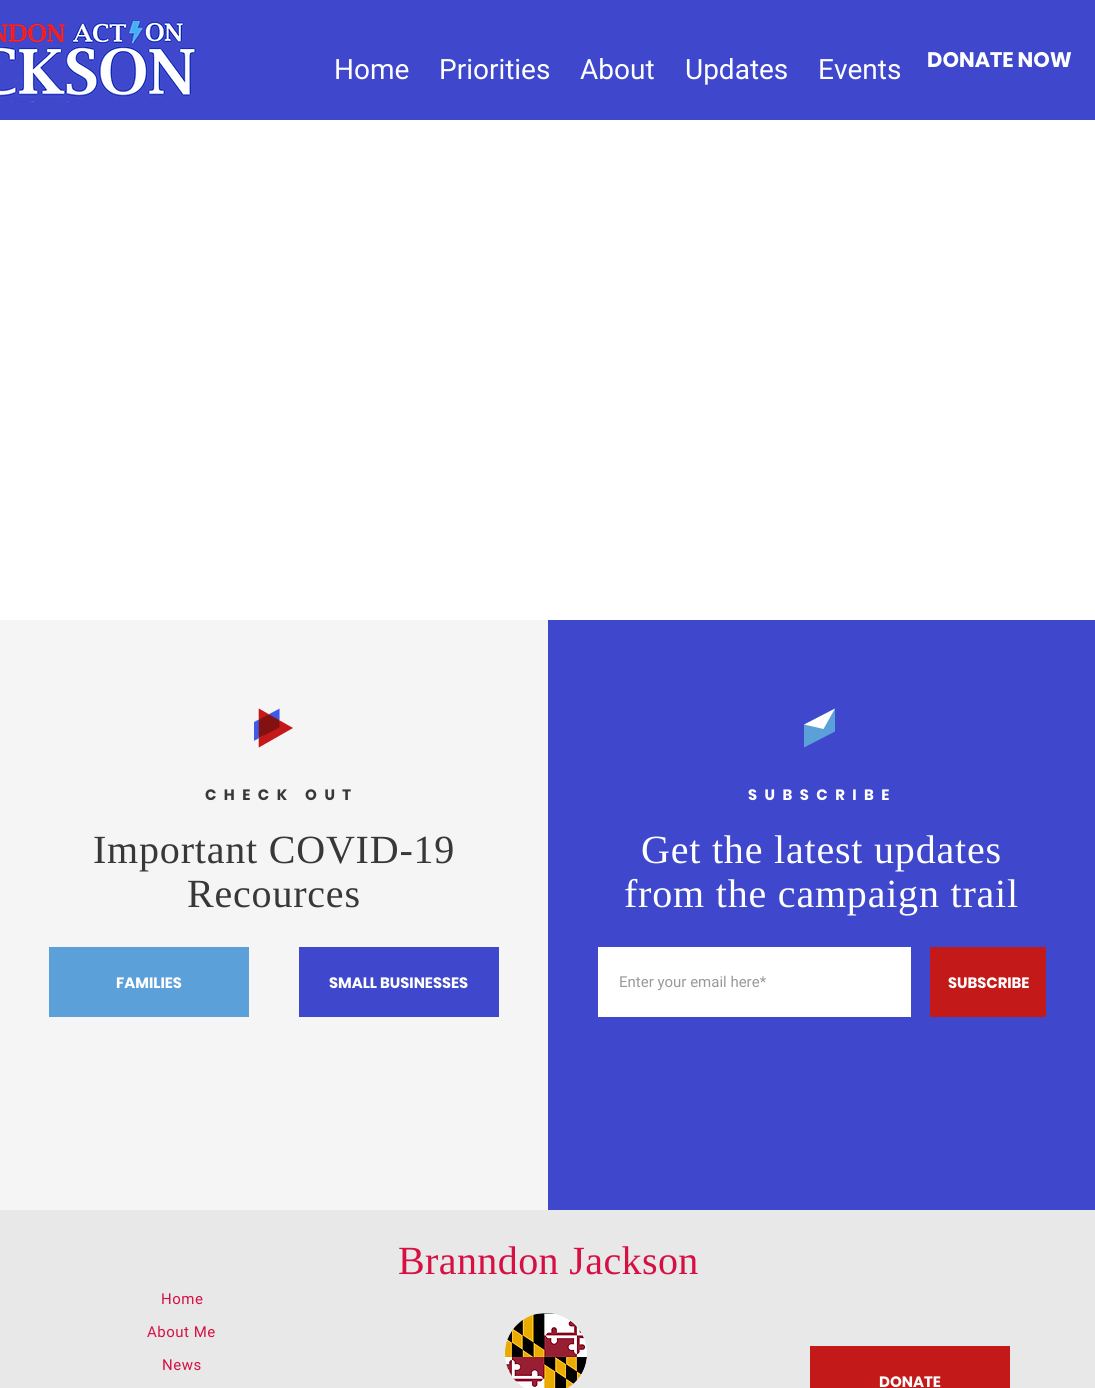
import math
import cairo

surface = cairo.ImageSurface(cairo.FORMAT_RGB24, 1095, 1388)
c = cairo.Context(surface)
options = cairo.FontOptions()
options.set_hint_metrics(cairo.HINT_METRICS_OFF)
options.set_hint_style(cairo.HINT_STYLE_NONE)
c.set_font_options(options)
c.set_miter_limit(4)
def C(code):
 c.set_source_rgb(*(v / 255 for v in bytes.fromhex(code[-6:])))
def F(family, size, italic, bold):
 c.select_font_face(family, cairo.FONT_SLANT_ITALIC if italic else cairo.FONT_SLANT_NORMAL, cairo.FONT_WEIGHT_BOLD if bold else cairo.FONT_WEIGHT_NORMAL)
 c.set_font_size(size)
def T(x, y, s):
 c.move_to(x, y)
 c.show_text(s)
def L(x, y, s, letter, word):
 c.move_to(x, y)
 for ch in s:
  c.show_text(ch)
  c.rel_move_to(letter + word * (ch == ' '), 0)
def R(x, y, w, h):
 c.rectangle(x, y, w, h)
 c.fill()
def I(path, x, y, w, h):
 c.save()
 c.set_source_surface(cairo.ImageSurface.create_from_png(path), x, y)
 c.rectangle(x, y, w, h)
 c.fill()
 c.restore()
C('ffffff')
c.paint()
C('3f48cc')
R(0,0,1095,120)
I('1.png',0,20,197,82)
F('Roboto',28,0,0)
C('ffffff')
T(334,79,'Home')
T(439,79,'Priorities')
T(580,79,'About')
T(685,79,'Updates')
T(818,79,'Events')
F('Poppins',21,0,1)
T(927,67,'DONATE NOW')
C('f5f5f5')
R(0,620,548,590)
I('2.png',254,708,39,40)
F('Poppins',15,0,1)
C('383838')
L(205,800,'CHECK OUT',7.5,0)
F('Liberation Serif',40,0,0)
L(93,863,'Important COVID-19',.8,0)
L(187,907,'Recources',.8,0)
C('5ba0d9')
R(49,947,200,70)
F('Poppins',15,0,1)
C('ffffff')
T(116,988,'FAMILIES')
C('3f48cc')
R(299,947,200,70)
C('ffffff')
T(329,988,'SMALL BUSINESSES')
C('3f48cc')
R(548,620,547,590)
C('5ba0d9')
c.new_path()
c.move_to(804,724.5)
c.line_to(804,747.5)
c.line_to(835,731.5)
c.line_to(835,708.5)
c.line_to(822.5,725)
c.close_path()
c.fill()
C('ffffff')
c.new_path()
c.move_to(823.5,729)
c.line_to(835,708.5)
c.line_to(804,724.5)
c.close_path()
c.fill()
L(748,800,'SUBSCRIBE',7.5,0)
F('Liberation Serif',40,0,0)
L(641,863,'Get the latest updates',.8,0)
L(624,907,'from the campaign trail',.8,0)
R(598,947,313,70)
F('Roboto',15,0,0)
C('999997')
T(619,987,'Enter your email here*')
C('c41919')
R(930,947,116,70)
F('Poppins',15,0,1)
C('ffffff')
T(948,988,'SUBSCRIBE')
C('e8e8e8')
R(0,1210,1095,178)
F('Liberation Serif',40,0,0)
C('d61043')
L(398,1274,'Branndon Jackson',.4,0)
I('3.png',505,1313,82,75)
F('Roboto',15,0,0)
L(161,1304,'Home',.5,0)
L(147,1337,'About Me',.5,0)
L(162,1370,'News',.5,0)
C('c41919')
R(810,1346,200,42)
F('Poppins',15,0,1)
C('ffffff')
T(879,1387,'DONATE')
surface.write_to_png('o.png')
